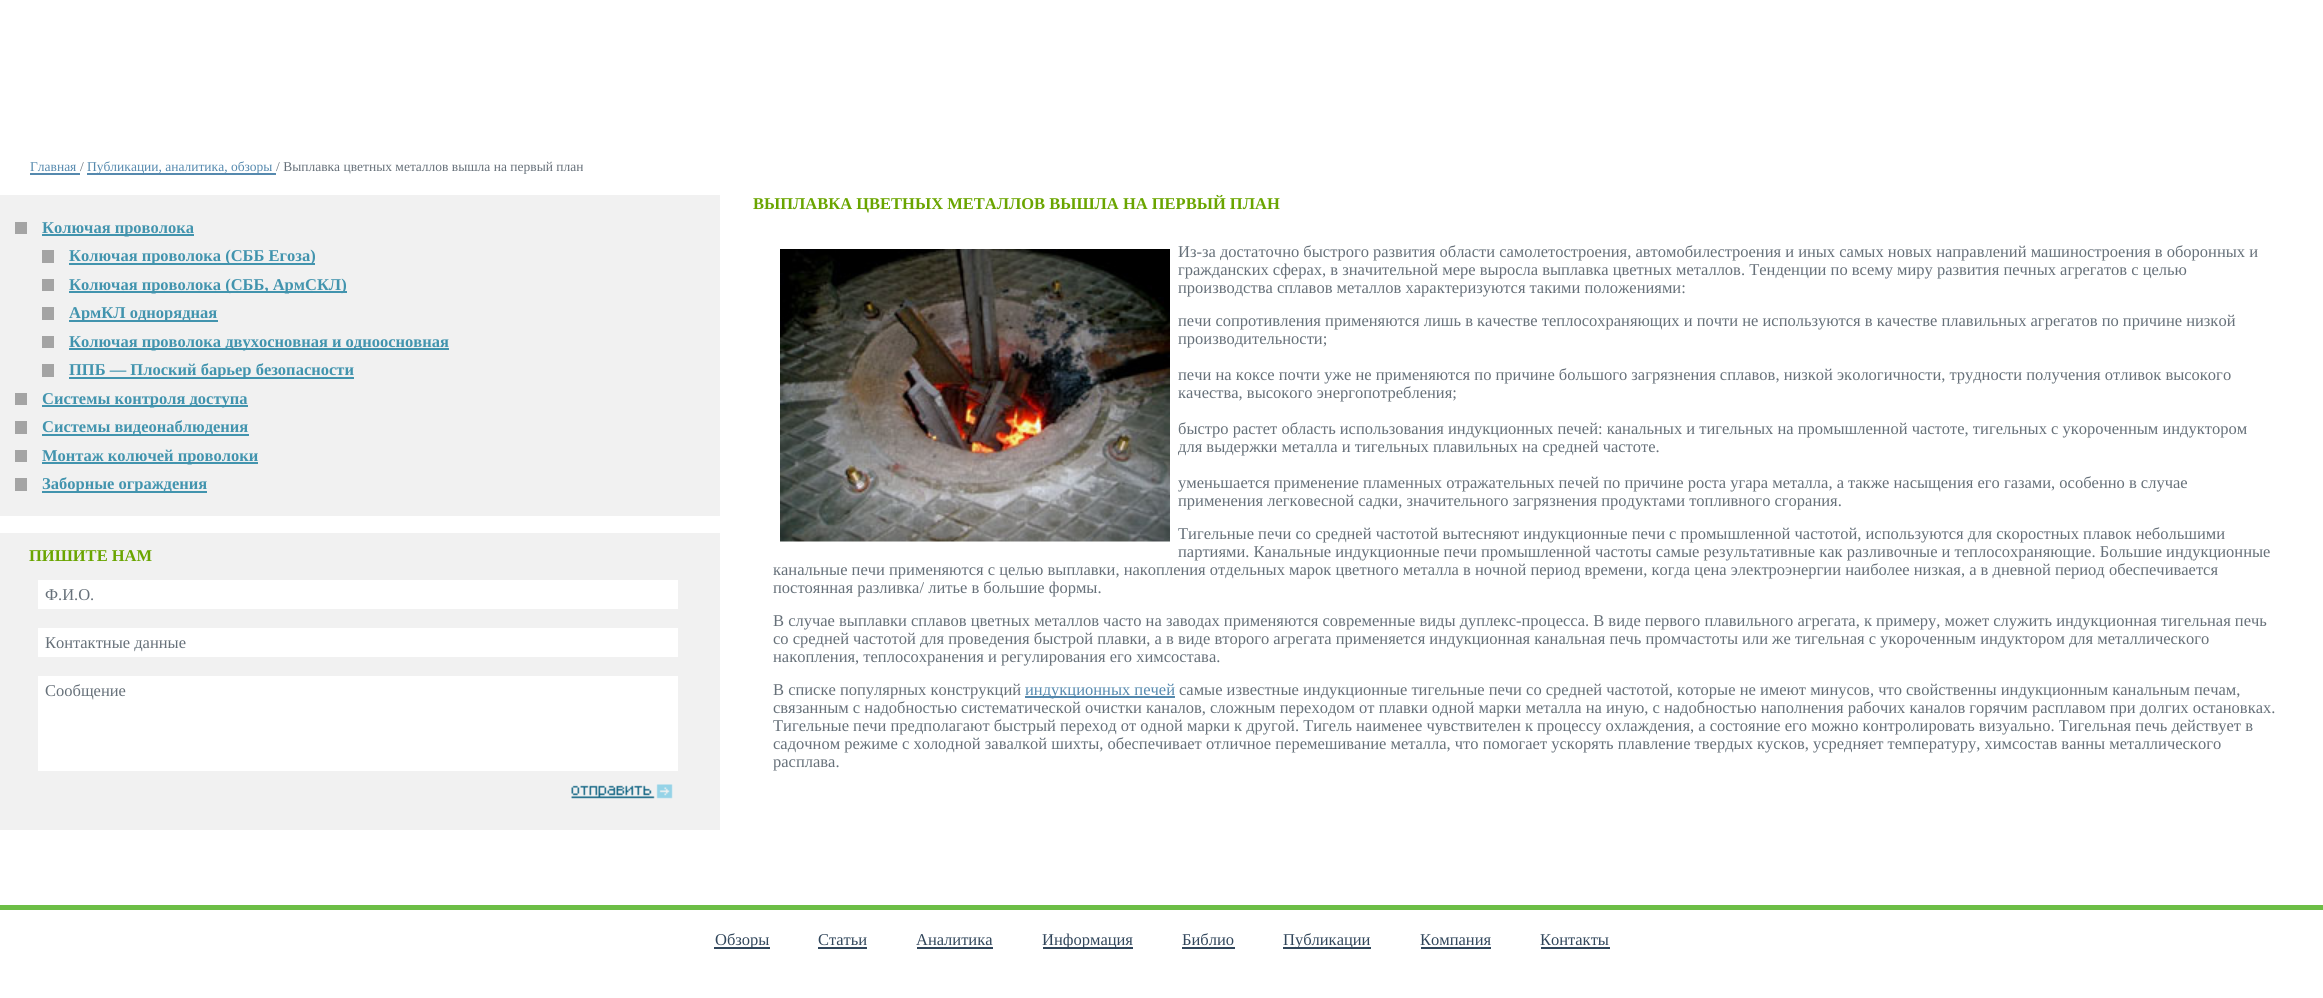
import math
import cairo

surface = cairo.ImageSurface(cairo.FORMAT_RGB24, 2323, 998)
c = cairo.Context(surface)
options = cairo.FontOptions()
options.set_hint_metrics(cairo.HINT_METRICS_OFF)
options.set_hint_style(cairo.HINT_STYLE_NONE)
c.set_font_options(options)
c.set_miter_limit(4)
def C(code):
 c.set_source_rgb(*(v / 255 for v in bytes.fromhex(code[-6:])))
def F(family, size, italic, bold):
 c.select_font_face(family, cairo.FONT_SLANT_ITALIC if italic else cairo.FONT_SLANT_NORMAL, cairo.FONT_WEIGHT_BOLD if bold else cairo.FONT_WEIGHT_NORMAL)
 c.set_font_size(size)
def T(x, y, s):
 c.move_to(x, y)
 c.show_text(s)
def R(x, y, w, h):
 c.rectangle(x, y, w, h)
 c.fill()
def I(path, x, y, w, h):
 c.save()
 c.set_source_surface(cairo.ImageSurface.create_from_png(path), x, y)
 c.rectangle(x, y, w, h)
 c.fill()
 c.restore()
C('ffffff')
c.paint()
F('Liberation Serif',13.5,0,0)
C('5589ae')
T(30,171,'Главная')
R(30,173,50,2)
C('667079')
T(80,171,'/')
C('5589ae')
R(87,173,189,2)
T(87,171,'Публикации, аналитика, обзоры')
C('667079')
T(276,171,'/ Выплавка цветных металлов вышла на первый план')
C('f1f1f1')
R(0,195,720,321)
C('a4a4a4')
R(15,222,12,12)
C('4294ae')
R(42,234,152,2)
F('Liberation Serif',16.5,0,1)
T(42,233,'Колючая проволока')
C('a4a4a4')
R(42,250,12,13)
C('4294ae')
R(69,263,246,2)
T(69,261,'Колючая проволока (СББ Егоза)')
C('a4a4a4')
R(42,279,12,12)
C('4294ae')
R(69,291,278,2)
T(69,290,'Колючая проволока (СББ, АрмСКЛ)')
C('a4a4a4')
R(42,307,12,13)
C('4294ae')
R(69,320,149,2)
T(69,318,'АрмКЛ однорядная')
C('a4a4a4')
R(42,336,12,12)
C('4294ae')
R(69,348,380,2)
T(69,347,'Колючая проволока двухосновная и одноосновная')
C('a4a4a4')
R(42,364,12,13)
C('4294ae')
R(69,377,285,2)
T(69,375,'ППБ — Плоский барьер безопасности')
C('a4a4a4')
R(15,393,12,12)
C('4294ae')
R(42,405,206,2)
T(42,404,'Системы контроля доступа')
C('a4a4a4')
R(15,421,12,13)
C('4294ae')
R(42,434,207,2)
T(42,432,'Системы видеонаблюдения')
C('a4a4a4')
R(15,450,12,12)
C('4294ae')
R(42,462,216,2)
T(42,461,'Монтаж колючей проволоки')
C('a4a4a4')
R(15,478,12,13)
C('4294ae')
R(42,491,165,2)
T(42,489,'Заборные ограждения')
C('f1f1f1')
R(0,533,720,297)
C('6aa500')
T(29,561,'ПИШИТЕ НАМ')
C('ffffff')
R(38,580,640,29)
F('Liberation Serif',16.5,0,0)
C('667079')
T(45,600,'Ф.И.О.')
C('ffffff')
R(38,628,640,29)
C('667079')
T(45,648,'Контактные данные')
C('ffffff')
R(38,676,640,95)
C('667079')
T(45,696,'Сообщение')
I('1.png',571,784,102,15)
F('Liberation Serif',16.5,0,1)
C('6aa500')
T(753,209,'ВЫПЛАВКА ЦВЕТНЫХ МЕТАЛЛОВ ВЫШЛА НА ПЕРВЫЙ ПЛАН')
I('2.png',780,249,390,293)
F('Liberation Serif',16.5,0,0)
C('667079')
T(1178,257,'Из-за достаточно быстрого развития области самолетостроения, автомобилестроения и иных самых новых направлений машиностроения в оборонных и')
T(1178,275,'гражданских сферах, в значительной мере выросла выплавка цветных металлов. Тенденции по всему миру развития печных агрегатов с целью')
T(1178,293,'производства сплавов металлов характеризуются такими положениями:')
T(1178,326,'печи сопротивления применяются лишь в качестве теплосохраняющих и почти не используются в качестве плавильных агрегатов по причине низкой')
T(1178,344,'производительности;')
T(1178,380,'печи на коксе почти уже не применяются по причине большого загрязнения сплавов, низкой экологичности, трудности получения отливок высокого')
T(1178,398,'качества, высокого энергопотребления;')
T(1178,434,'быстро растет область использования индукционных печей: канальных и тигельных на промышленной частоте, тигельных с укороченным индуктором')
T(1178,452,'для выдержки металла и тигельных плавильных на средней частоте.')
T(1178,488,'уменьшается применение пламенных отражательных печей по причине роста угара металла, а также насыщения его газами, особенно в случае')
T(1178,506,'применения легковесной садки, значительного загрязнения продуктами топливного сгорания.')
T(1178,539,'Тигельные печи со средней частотой вытесняют индукционные печи с промышленной частотой, используются для скоростных плавок небольшими')
T(1178,557,'партиями. Канальные индукционные печи промышленной частоты самые результативные как разливочные и теплосохраняющие. Большие индукционные')
T(773,575,'канальные печи применяются с целью выплавки, накопления отдельных марок цветного металла в ночной период времени, когда цена электроэнергии наиболее низкая, а в дневной период обеспечивается')
T(773,593,'постоянная разливка/ литье в большие формы.')
T(773,626,'В случае выплавки сплавов цветных металлов часто на заводах применяются современные виды дуплекс-процесса. В виде первого плавильного агрегата, к примеру, может служить индукционная тигельная печь')
T(773,644,'со средней частотой для проведения быстрой плавки, а в виде второго агрегата применяется индукционная канальная печь промчастоты или же тигельная с укороченным индуктором для металлического')
T(773,662,'накопления, теплосохранения и регулирования его химсостава.')
T(773,695,'В списке популярных конструкций')
C('5589ae')
R(1025,696,150,2)
T(1025,695,'индукционных печей')
C('667079')
T(1179,695,'самые известные индукционные тигельные печи со средней частотой, которые не имеют минусов, что свойственны индукционным канальным печам,')
T(773,713,'связанным с надобностью систематической очистки каналов, сложным переходом от плавки одной марки металла на иную, с надобностью наполнения рабочих каналов горячим расплавом при долгих остановках.')
T(773,731,'Тигельные печи предполагают быстрый переход от одной марки к другой. Тигель наименее чувствителен к процессу охлаждения, а состояние его можно контролировать визуально. Тигельная печь действует в')
T(773,749,'садочном режиме с холодной завалкой шихты, обеспечивает отличное перемешивание металла, что помогает ускорять плавление твердых кусков, усредняет температуру, химсостав ванны металлического')
T(773,767,'расплава.')
C('6cbe46')
R(0,905,2323,5)
C('31465b')
R(714,947,56,2)
T(715,945,'Обзоры')
T(818,945,'Статьи')
R(818,947,49,2)
T(916,945,'Аналитика')
R(917,947,76,2)
R(1043,947,90,2)
T(1042,945,'Информация')
T(1182,945,'Библио')
R(1182,947,53,2)
R(1283,947,88,2)
T(1283,945,'Публикации')
T(1420,945,'Компания')
R(1421,947,70,2)
T(1540,945,'Контакты')
R(1541,947,69,2)
surface.write_to_png('o.png')
